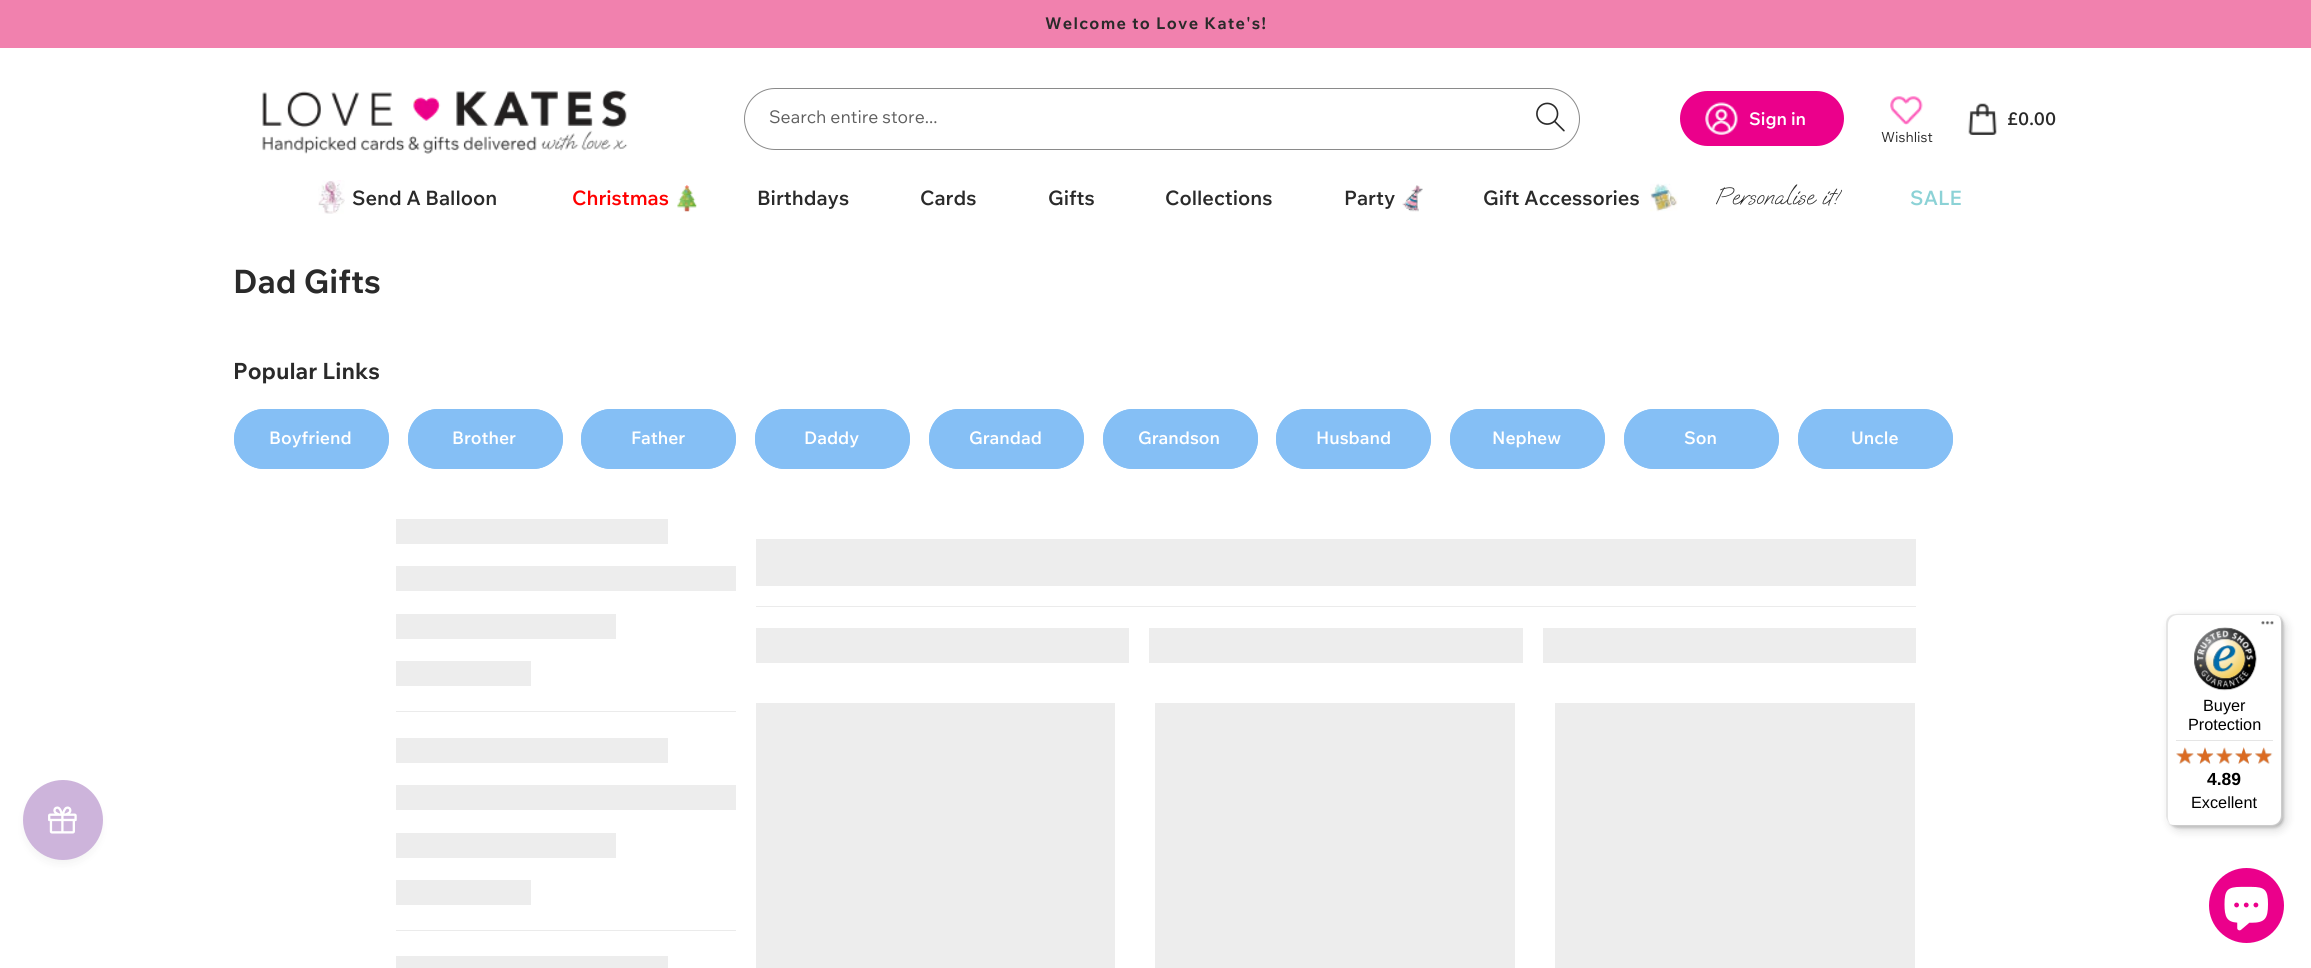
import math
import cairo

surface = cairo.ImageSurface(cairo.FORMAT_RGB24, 2311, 968)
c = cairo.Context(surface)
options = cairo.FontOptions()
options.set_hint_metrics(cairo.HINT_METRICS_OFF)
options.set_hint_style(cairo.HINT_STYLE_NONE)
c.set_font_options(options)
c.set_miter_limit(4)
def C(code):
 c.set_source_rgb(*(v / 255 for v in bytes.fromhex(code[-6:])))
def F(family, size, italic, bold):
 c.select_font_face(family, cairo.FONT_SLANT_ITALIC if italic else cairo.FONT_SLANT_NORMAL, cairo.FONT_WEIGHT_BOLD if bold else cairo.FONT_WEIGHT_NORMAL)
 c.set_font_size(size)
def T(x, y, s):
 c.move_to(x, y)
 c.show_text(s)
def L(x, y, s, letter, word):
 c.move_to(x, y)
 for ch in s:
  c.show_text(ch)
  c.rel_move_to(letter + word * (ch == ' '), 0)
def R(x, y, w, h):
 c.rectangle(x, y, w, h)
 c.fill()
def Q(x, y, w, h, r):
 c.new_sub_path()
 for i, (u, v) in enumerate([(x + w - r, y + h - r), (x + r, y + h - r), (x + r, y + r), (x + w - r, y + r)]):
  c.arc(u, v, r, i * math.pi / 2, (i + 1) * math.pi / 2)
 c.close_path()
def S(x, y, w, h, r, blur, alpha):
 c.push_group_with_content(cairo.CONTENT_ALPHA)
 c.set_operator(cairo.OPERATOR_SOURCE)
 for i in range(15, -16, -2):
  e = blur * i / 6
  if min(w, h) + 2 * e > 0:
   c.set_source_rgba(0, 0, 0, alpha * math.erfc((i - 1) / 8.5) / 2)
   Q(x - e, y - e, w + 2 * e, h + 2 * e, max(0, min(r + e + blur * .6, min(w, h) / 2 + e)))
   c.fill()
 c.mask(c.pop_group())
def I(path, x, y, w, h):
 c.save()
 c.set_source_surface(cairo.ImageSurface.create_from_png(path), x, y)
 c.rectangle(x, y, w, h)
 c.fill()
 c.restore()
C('ffffff')
c.paint()
C('f181ae')
R(0,0,2311,48)
F('Wix Madefor Text',16.25,0,1)
C('2a2a2a')
L(1045,29,'Welcome to Love Kate\'s!',1.25,0)
I('1.png',262,90,366,64)
I('2.png',1536,102,29,30)
Q(744.5,88.5,835,61,30.5)
C('8a8a8a')
c.set_line_width(1)
c.stroke()
F('Wix Madefor Text',17.5,0,0)
C('5f5f5f')
T(769,123,'Search entire store...')
C('eb008b')
Q(1680,91,164,55,27.5)
c.fill()
I('3.png',1705,102,33,33)
F('Wix Madefor Text SemiBold',17.5,0,0)
C('ffffff')
T(1749,125,'Sign in')
I('4.png',1968,103,29,32)
C('2a2a2a')
T(2007,125,'£0.00')
I('5.png',1890,96,33,29)
F('Wix Madefor Text',14,0,0)
T(1881,142,'Wishlist')
I('6.png',318,180,27,34)
F('Wix Madefor Text SemiBold',20,0,0)
T(352,205,'Send A Balloon')
I('7.png',677,185,20,27)
C('ff0000')
T(572,205,'Christmas')
C('2a2a2a')
T(757,205,'Birthdays')
T(920,205,'Cards')
T(1048,205,'Gifts')
T(1165,205,'Collections')
I('8.png',1402,185,21,27)
T(1344,205,'Party')
I('9.png',1650,183,28,29)
T(1483,205,'Gift Accessories')
F('Oooh Baby',25,0,0)
T(1715,204,'Personalise it!')
F('Wix Madefor Text SemiBold',20,0,0)
C('8cd2d6')
T(1910,205,'SALE')
F('Wix Madefor Text',32.5,0,1)
C('2a2a2a')
T(233,293,'Dad Gifts')
F('Wix Madefor Text',22.5,0,1)
T(233,379,'Popular Links')
C('85bff5')
Q(234,409,155,60,30)
c.fill()
Q(235.5,410.5,152,57,28.5)
c.set_line_width(3)
c.stroke()
F('Wix Madefor Text SemiBold',17.5,0,0)
C('ffffff')
T(269,444,'Boyfriend')
C('85bff5')
Q(408,409,155,60,30)
c.fill()
Q(409.5,410.5,152,57,28.5)
c.stroke()
C('ffffff')
T(452,444,'Brother')
C('85bff5')
Q(581,409,155,60,30)
c.fill()
Q(582.5,410.5,152,57,28.5)
c.stroke()
C('ffffff')
T(631,444,'Father')
C('85bff5')
Q(755,409,155,60,30)
c.fill()
Q(756.5,410.5,152,57,28.5)
c.stroke()
C('ffffff')
T(804,444,'Daddy')
C('85bff5')
Q(929,409,155,60,30)
c.fill()
Q(930.5,410.5,152,57,28.5)
c.stroke()
C('ffffff')
T(969,444,'Grandad')
C('85bff5')
Q(1103,409,155,60,30)
c.fill()
Q(1104.5,410.5,152,57,28.5)
c.stroke()
C('ffffff')
T(1138,444,'Grandson')
C('85bff5')
Q(1276,409,155,60,30)
c.fill()
Q(1277.5,410.5,152,57,28.5)
c.stroke()
C('ffffff')
T(1316,444,'Husband')
C('85bff5')
Q(1450,409,155,60,30)
c.fill()
Q(1451.5,410.5,152,57,28.5)
c.stroke()
C('ffffff')
T(1492,444,'Nephew')
C('85bff5')
Q(1624,409,155,60,30)
c.fill()
Q(1625.5,410.5,152,57,28.5)
c.stroke()
C('ffffff')
T(1684,444,'Son')
C('85bff5')
Q(1798,409,155,60,30)
c.fill()
Q(1799.5,410.5,152,57,28.5)
c.stroke()
C('ffffff')
T(1851,444,'Uncle')
C('ebebeb')
R(396,711,340,1)
C('ededed')
R(396,519,272,25)
R(396,566,340,25)
R(396,614,220,25)
R(396,661,135,25)
C('ebebeb')
R(396,930,340,1)
C('ededed')
R(396,738,272,25)
R(396,785,340,25)
R(396,833,220,25)
R(396,880,135,25)
R(396,956,272,12)
R(756,539,1160,47)
C('ebebeb')
R(756,606,1160,1)
C('ededed')
R(756,628,373,35)
R(1149,628,374,35)
R(1543,628,373,35)
R(756,703,359,265)
R(1155,703,360,265)
R(1555,703,360,265)
C('000000')
S(2170,618,116,212,10,5,.15)
S(2168,615,116,213,10,1,.15)
C('ffffff')
Q(2166,614,117,212,10)
c.fill()
C('e5e5e5')
c.new_path()
c.move_to(2178,615)
c.line_to(2274,615)
c.curve_to(2276,615,2279,616,2281,618)
c.curve_to(2279,615,2276,614,2273,614)
c.line_to(2176,614)
c.curve_to(2170,614,2166,618,2166,624)
c.line_to(2166,816)
c.curve_to(2166,819,2168,822,2170,824)
c.curve_to(2169,822,2168,820,2168,818)
c.line_to(2168,625)
c.curve_to(2168,619,2172,615,2178,615)
c.close_path()
c.fill()
c.set_source_rgba(0,0,0,0.2)
c.new_path()
c.move_to(2170,824)
c.curve_to(2171,825,2174,826,2176,826)
c.line_to(2273,826)
c.curve_to(2279,826,2283,822,2283,816)
c.line_to(2283,624)
c.curve_to(2283,621,2281,618,2279,616)
c.curve_to(2280,618,2281,620,2281,622)
c.line_to(2281,815)
c.curve_to(2281,821,2277,825,2271,825)
c.line_to(2175,825)
c.curve_to(2173,825,2171,825,2170,824)
c.close_path()
c.fill()
c.set_source_rgba(0.196,0.196,0.196,0.2)
c.new_path()
c.move_to(2272,826)
c.line_to(2273,826)
c.curve_to(2279,826,2283,822,2283,816)
c.line_to(2283,624)
c.curve_to(2283,621,2282,618,2280,616)
c.curve_to(2281,618,2282,620,2282,623)
c.line_to(2282,816)
c.curve_to(2282,821,2277,826,2272,826)
c.close_path()
c.fill()
c.set_source_rgba(1,1,1,0.3)
c.new_path()
c.move_to(2272,826)
c.line_to(2273,826)
c.curve_to(2279,826,2283,822,2283,816)
c.line_to(2283,624)
c.curve_to(2283,620,2281,617,2278,615)
c.curve_to(2280,617,2282,620,2282,623)
c.line_to(2282,816)
c.curve_to(2282,821,2277,826,2272,826)
c.close_path()
c.fill()
I('10.png',2261,621,13,4)
I('11.png',2194,627,63,64)
F('Liberation Sans',16.25,0,0)
C('000000')
T(2203,711,'Buyer')
T(2188,730,'Protection')
C('e5e5e5')
R(2176,740,97,1)
I('12.png',2176,748,18,16)
I('13.png',2197,747,16,17)
I('14.png',2216,748,17,16)
I('15.png',2235,747,17,17)
I('16.png',2255,748,18,16)
I('17.png',2176,747,18,17)
I('18.png',2196,747,18,17)
I('19.png',2216,747,17,17)
I('20.png',2235,747,17,17)
I('21.png',2255,747,17,17)
F('Liberation Sans',17.5,0,1)
C('000000')
T(2207,785,'4.89')
F('Liberation Sans',16.25,0,0)
T(2191,808,'Excellent')
C('444444')
S(25,788,75,75,37.5,5,.08)
C('cdb4db')
c.arc(63,820,40,0,2 * math.pi)
c.fill()
I('22.png',48,806,29,28)
C('eb008b')
c.arc(2246.5,905.5,37.5,0,2 * math.pi)
c.fill()
I('23.png',2224,886,44,45)
surface.write_to_png('o.png')
